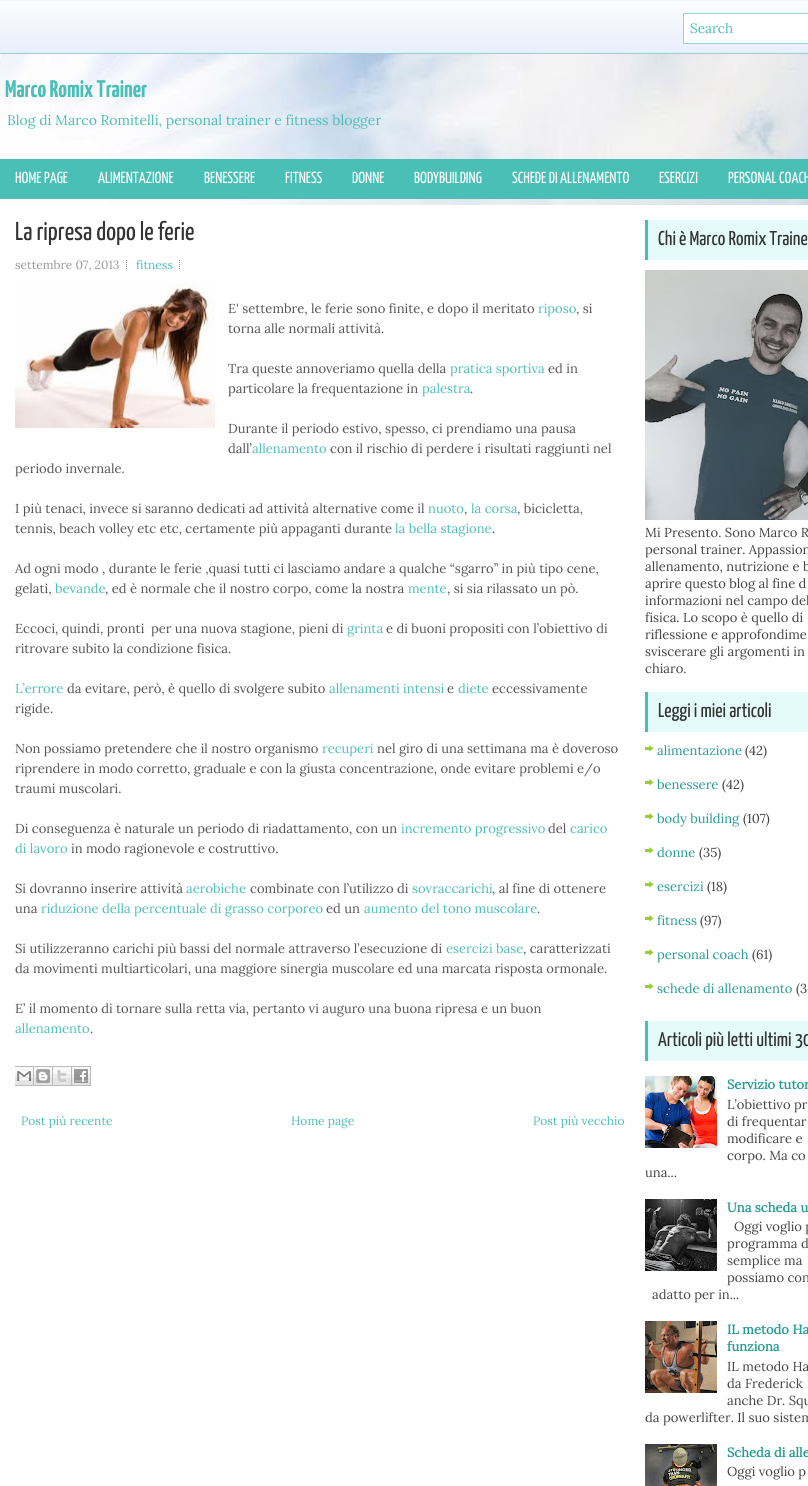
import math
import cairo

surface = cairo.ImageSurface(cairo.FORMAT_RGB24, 808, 1486)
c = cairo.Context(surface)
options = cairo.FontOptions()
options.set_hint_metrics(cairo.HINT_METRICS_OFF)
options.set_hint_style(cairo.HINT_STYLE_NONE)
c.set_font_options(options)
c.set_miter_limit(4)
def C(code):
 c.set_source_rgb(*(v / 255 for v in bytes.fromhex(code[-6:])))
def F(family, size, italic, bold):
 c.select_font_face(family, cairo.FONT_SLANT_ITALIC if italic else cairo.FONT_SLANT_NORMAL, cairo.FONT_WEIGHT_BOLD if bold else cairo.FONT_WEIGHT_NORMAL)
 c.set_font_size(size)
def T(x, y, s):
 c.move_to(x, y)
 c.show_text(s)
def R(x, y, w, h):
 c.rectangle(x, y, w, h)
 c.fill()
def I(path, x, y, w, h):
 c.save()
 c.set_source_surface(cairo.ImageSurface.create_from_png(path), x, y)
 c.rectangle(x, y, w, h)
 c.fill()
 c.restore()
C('ffffff')
c.paint()
I('1.png',0,54,808,151)
I('2.png',0,0,808,54)
C('ffffff')
c.rectangle(683.5,13.5,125,30)
c.fill_preserve()
C('95d5d0')
c.set_line_width(1)
c.stroke()
F('Lora',13.5,0,0)
C('4bbfb7')
T(690,33,'Search')
F('Yanone Kaffeesatz',24,0,1)
T(5,97,'Marco Romix Trainer')
F('Lora',14,0,0)
T(7,125,'Blog di Marco Romitelli, personal trainer e fitness blogger')
C('4abfb6')
R(0,159,808,40)
F('Yanone Kaffeesatz',16,0,0)
C('ffffff')
T(15,183,'HOME PAGE')
T(98,183,'ALIMENTAZIONE')
T(204,183,'BENESSERE')
T(285,183,'FITNESS')
T(352,183,'DONNE')
T(414,183,'BODYBUILDING')
T(512,183,'SCHEDE DI ALLENAMENTO')
T(659,183,'ESERCIZI')
T(728,183,'PERSONAL COACH')
F('Yanone Kaffeesatz',26,0,0)
C('333333')
T(15,240,'La ripresa dopo le ferie')
F('Lora',12,0,0)
C('999999')
T(15,269,'settembre 07, 2013')
I('3.png',126,260,1,9)
C('4bbfb7')
T(136,269,'fitness')
I('3.png',179,260,1,9)
I('4.png',15,279,200,149)
F('Lora',13,0,0)
C('555555')
T(228,313,'E\' settembre, le ferie sono finite, e dopo il meritato')
C('4bbfb7')
T(538,313,'riposo')
C('555555')
T(576,313,', si')
T(228,333,'torna alle normali attività.')
T(228,373,'Tra queste annoveriamo quella della')
C('4bbfb7')
T(450,373,'pratica sportiva')
C('555555')
T(548,373,'ed in')
T(228,393,'particolare la frequentazione in')
C('4bbfb7')
T(422,393,'palestra')
C('555555')
T(470,393,'.')
T(228,433,'Durante il periodo estivo, spesso, ci prendiamo una pausa')
T(228,453,'dall’')
C('4bbfb7')
T(252,453,'allenamento')
C('555555')
T(330,453,'con il rischio di perdere i risultati raggiunti nel')
T(15,473,'periodo invernale.')
T(15,513,'I più tenaci, invece si saranno dedicati ad attività alternative come il')
C('4bbfb7')
T(428,513,'nuoto')
C('555555')
T(464,513,',')
C('4bbfb7')
T(471,513,'la corsa')
C('555555')
T(517,513,', bicicletta,')
T(15,533,'tennis, beach volley etc etc, certamente più appaganti durante')
C('4bbfb7')
T(395,533,'la bella stagione')
C('555555')
T(492,533,'.')
T(15,573,'Ad ogni modo , durante le ferie ,quasi tutti ci lasciamo andare a qualche “sgarro” in più tipo cene,')
T(15,593,'gelati,')
C('4bbfb7')
T(55,593,'bevande')
C('555555')
T(105,593,', ed è normale che il nostro corpo, come la nostra')
C('4bbfb7')
T(408,593,'mente')
C('555555')
T(447,593,', si sia rilassato un pò.')
T(15,633,'Eccoci, quindi, pronti')
T(151,633,'per una nuova stagione, pieni di')
C('4bbfb7')
T(347,633,'grinta')
C('555555')
T(386,633,'e di buoni propositi con l’obiettivo di')
T(15,653,'ritrovare subito la condizione fisica.')
C('4bbfb7')
T(15,693,'L’errore')
C('555555')
T(67,693,'da evitare, però, è quello di svolgere subito')
C('4bbfb7')
T(329,693,'allenamenti intensi')
C('555555')
T(447,693,'e')
C('4bbfb7')
T(458,693,'diete')
C('555555')
T(492,693,'eccessivamente')
T(15,713,'rigide.')
T(15,753,'Non possiamo pretendere che il nostro organismo')
C('4bbfb7')
T(322,753,'recuperi')
C('555555')
T(377,753,'nel giro di una settimana ma è doveroso')
T(15,773,'riprendere in modo corretto, graduale e con la giusta concentrazione, onde evitare problemi e/o')
T(15,793,'traumi muscolari.')
T(15,833,'Di conseguenza è naturale un periodo di riadattamento, con un')
C('4bbfb7')
T(401,833,'incremento progressivo')
C('555555')
T(548,833,'del')
C('4bbfb7')
T(570,833,'carico')
T(15,853,'di lavoro')
C('555555')
T(71,853,'in modo ragionevole e costruttivo.')
T(15,893,'Si dovranno inserire attività')
C('4bbfb7')
T(186,893,'aerobiche')
C('555555')
T(250,893,'combinate con l’utilizzo di')
C('4bbfb7')
T(412,893,'sovraccarichi')
C('555555')
T(492,893,', al fine di ottenere')
T(15,913,'una')
C('4bbfb7')
T(41,913,'riduzione della percentuale di grasso corporeo')
C('555555')
T(326,913,'ed un')
C('4bbfb7')
T(364,913,'aumento del tono muscolare')
C('555555')
T(537,913,'.')
T(15,953,'Si utilizzeranno carichi più bassi del normale attraverso l’esecuzione di')
C('4bbfb7')
T(446,953,'esercizi base')
C('555555')
T(523,953,', caratterizzati')
T(15,973,'da movimenti multiarticolari, una maggiore sinergia muscolare ed una marcata risposta ormonale.')
T(15,1013,'E’ il momento di tornare sulla retta via, pertanto vi auguro una buona ripresa e un buon')
C('4bbfb7')
T(15,1033,'allenamento')
C('555555')
T(90,1033,'.')
I('5.png',15,1066,19,20)
I('6.png',34,1066,19,20)
I('7.png',53,1066,19,20)
I('8.png',72,1066,19,20)
F('Lora',12,0,0)
C('4bbfb7')
T(21,1125,'Post più recente')
T(291,1125,'Home page')
T(533,1125,'Post più vecchio')
C('e5fbf9')
R(648,220,160,40)
C('4abfb6')
R(645,220,3,40)
F('Yanone Kaffeesatz',20,0,0)
C('333333')
T(658,245,'Chi è Marco Romix Traine')
I('9.png',645,270,163,250)
F('Lora',13,0,0)
C('444444')
T(645,537,'Mi Presento. Sono Marco R')
T(645,554,'personal trainer. Appassion')
T(645,571,'allenamento, nutrizione e b')
T(645,588,'aprire questo blog al fine d')
T(645,605,'informazioni nel campo del')
T(645,622,'fisica. Lo scopo è quello di')
T(645,639,'riflessione e approfondime')
T(645,656,'sviscerare gli argomenti in')
T(645,673,'chiaro.')
C('e5fbf9')
R(648,692,160,40)
C('4abfb6')
R(645,692,3,40)
F('Yanone Kaffeesatz',20,0,0)
C('333333')
T(658,717,'Leggi i miei articoli')
I('10.png',645,745,9,7)
F('Lora',13,0,0)
C('259c93')
T(657,755,'alimentazione')
C('444444')
T(745,755,'(42)')
I('10.png',645,779,9,7)
C('259c93')
T(657,789,'benessere')
C('444444')
T(722,789,'(42)')
I('10.png',645,813,9,7)
C('259c93')
T(657,823,'body building')
C('444444')
T(743,823,'(107)')
I('10.png',645,847,9,7)
C('259c93')
T(657,857,'donne')
C('444444')
T(699,857,'(35)')
I('10.png',645,881,9,7)
C('259c93')
T(657,891,'esercizi')
C('444444')
T(707,891,'(18)')
I('10.png',645,915,9,7)
C('259c93')
T(657,925,'fitness')
C('444444')
T(700,925,'(97)')
I('10.png',645,949,9,7)
C('259c93')
T(657,959,'personal coach')
C('444444')
T(752,959,'(61)')
I('10.png',645,983,9,7)
C('259c93')
T(657,993,'schede di allenamento')
C('444444')
T(796,993,'(3')
C('e5fbf9')
R(648,1021,160,40)
C('4abfb6')
R(645,1021,3,40)
F('Yanone Kaffeesatz',20,0,0)
C('333333')
T(658,1046,'Articoli più letti ultimi 30')
I('11.png',645,1076,72,72)
F('Lora',13,0,1)
C('259c93')
T(727,1089,'Servizio tutor')
F('Lora',13,0,0)
C('444444')
T(727,1109,'L’obiettivo pr')
T(727,1126,'di frequentar')
T(727,1143,'modificare e')
T(727,1160,'corpo. Ma co')
T(645,1177,'una...')
I('12.png',645,1199,72,72)
F('Lora',13,0,1)
C('259c93')
T(727,1212,'Una scheda u')
F('Lora',13,0,0)
C('444444')
T(734,1231,'Oggi voglio p')
T(727,1248,'programma d')
T(727,1265,'semplice ma')
T(727,1282,'possiamo con')
T(652,1299,'adatto per in...')
I('13.png',645,1321,72,72)
F('Lora',13,0,1)
C('259c93')
T(727,1334,'IL metodo Ha')
T(727,1351,'funziona')
F('Lora',13,0,0)
C('444444')
T(727,1371,'IL metodo Ha')
T(727,1388,'da Frederick')
T(727,1405,'anche Dr. Squ')
T(645,1422,'da powerlifter. Il suo sistem')
I('14.png',645,1444,72,42)
F('Lora',13,0,1)
C('259c93')
T(727,1457,'Scheda di alle')
F('Lora',13,0,0)
C('444444')
T(727,1476,'Oggi voglio p')
surface.write_to_png('o.png')
